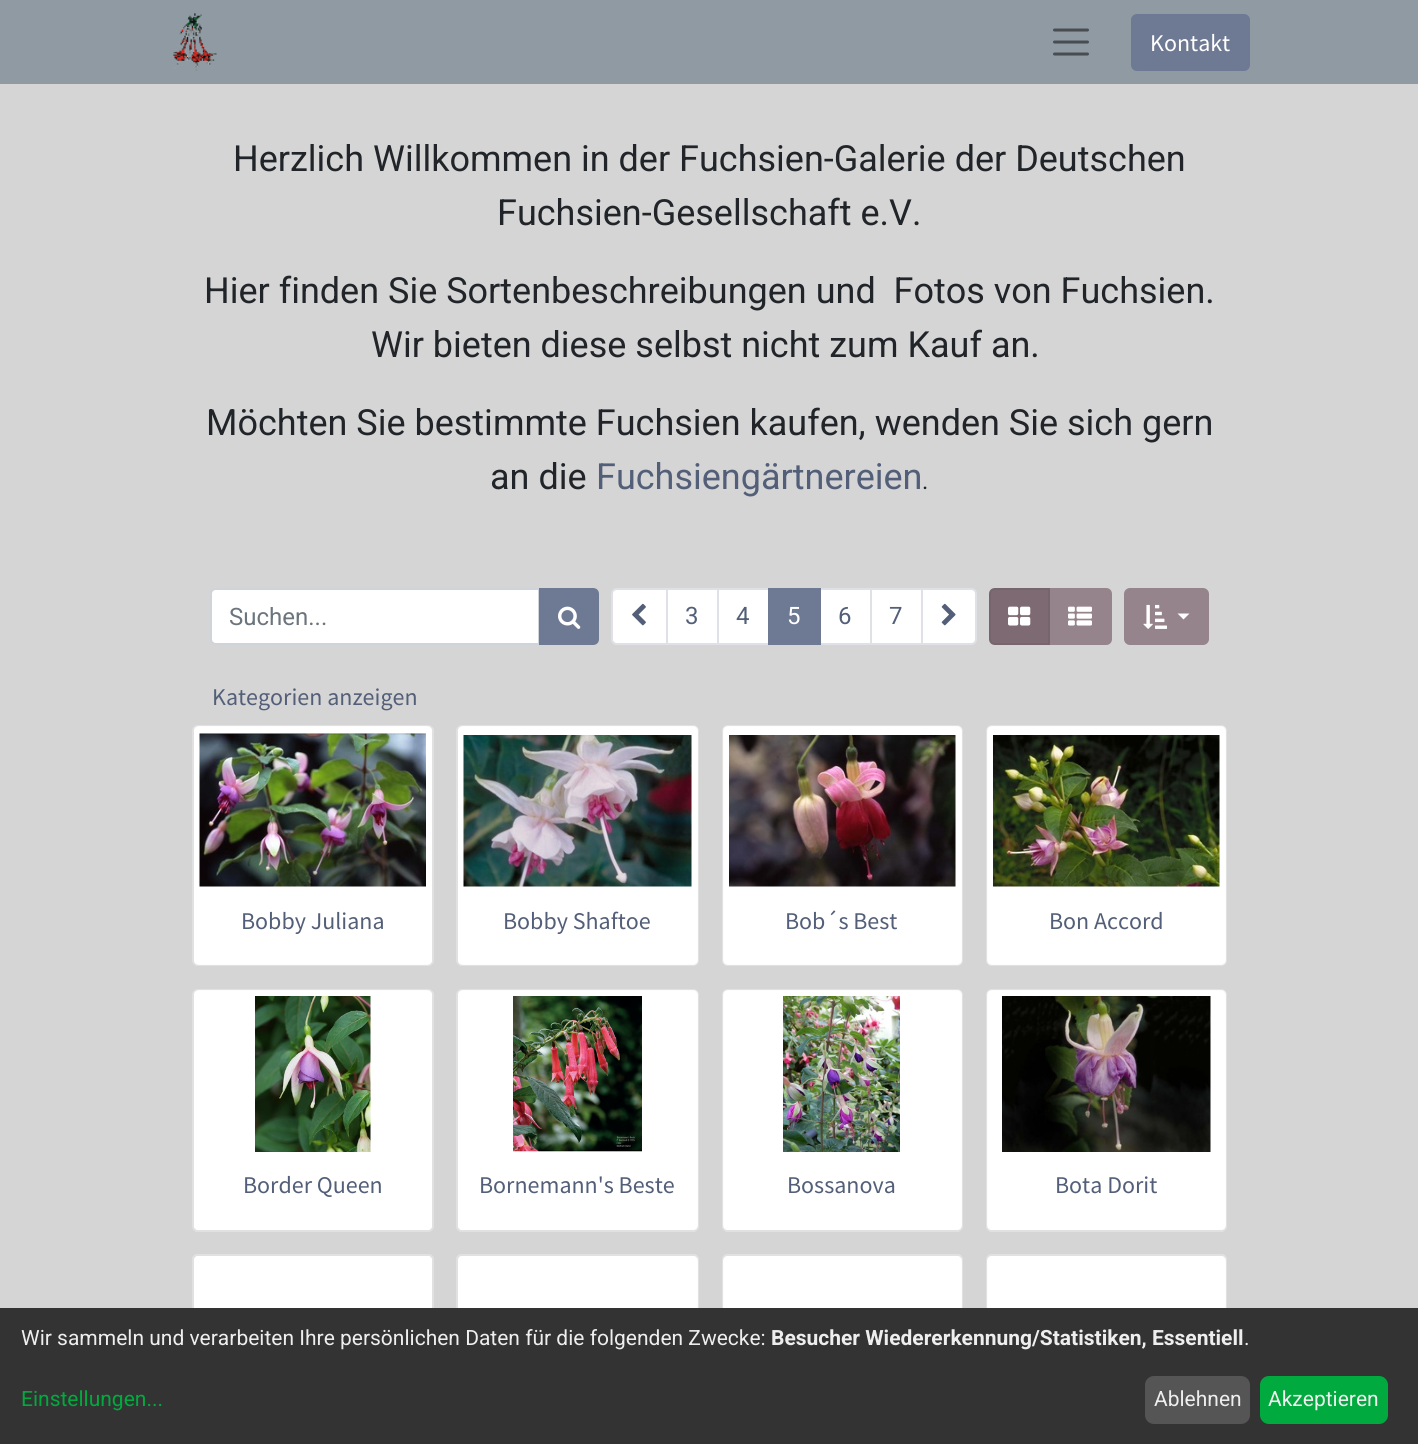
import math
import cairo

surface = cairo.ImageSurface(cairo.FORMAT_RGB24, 1418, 1444)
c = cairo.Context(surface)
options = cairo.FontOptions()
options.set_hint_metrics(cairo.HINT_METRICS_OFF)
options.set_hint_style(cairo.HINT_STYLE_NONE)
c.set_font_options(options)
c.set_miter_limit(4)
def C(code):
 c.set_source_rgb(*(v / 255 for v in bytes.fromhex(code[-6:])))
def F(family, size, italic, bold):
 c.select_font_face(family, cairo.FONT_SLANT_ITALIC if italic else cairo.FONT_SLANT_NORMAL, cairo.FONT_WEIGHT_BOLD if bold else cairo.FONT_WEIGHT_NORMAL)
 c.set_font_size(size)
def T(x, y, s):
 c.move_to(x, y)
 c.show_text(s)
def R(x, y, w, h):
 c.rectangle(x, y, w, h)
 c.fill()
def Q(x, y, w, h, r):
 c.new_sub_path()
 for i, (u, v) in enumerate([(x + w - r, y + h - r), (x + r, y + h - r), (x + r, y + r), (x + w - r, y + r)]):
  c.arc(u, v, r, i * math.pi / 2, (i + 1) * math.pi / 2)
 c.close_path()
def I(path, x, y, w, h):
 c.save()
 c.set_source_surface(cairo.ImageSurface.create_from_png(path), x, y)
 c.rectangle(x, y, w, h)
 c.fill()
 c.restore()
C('d5d5d5')
c.paint()
C('8f9aa2')
R(0,0,1418,84)
I('1.png',173,13,44,58)
c.new_path()
c.move_to(1054.5,30)
c.line_to(1087.5,30)
c.move_to(1054.5,42)
c.line_to(1087.5,42)
c.move_to(1054.5,54)
c.line_to(1087.5,54)
C('484d51')
c.set_line_width(3)
c.set_line_cap(cairo.LINE_CAP_ROUND)
c.stroke()
C('6e7993')
Q(1132,15,117,55,5)
c.fill_preserve()
c.set_line_width(2)
c.set_line_cap(cairo.LINE_CAP_BUTT)
c.stroke()
F('Source Sans Pro',24,0,0)
C('ffffff')
T(1150,51,'Kontakt')
F('Roboto',36,0,0)
C('212529')
T(233,171,'Herzlich Willkommen in der Fuchsien-Galerie der Deutschen')
T(497,225,'Fuchsien-Gesellschaft e.V.')
T(204,303,'Hier finden Sie Sortenbeschreibungen und  Fotos von Fuchsien.')
T(371,357,'Wir bieten diese selbst nicht zum Kauf an.')
T(206,435,'Möchten Sie bestimmte Fuchsien kaufen, wenden Sie sich gern')
T(490,489,'an die')
C('535f78')
T(596,489,'Fuchsiengärtnereien')
F('Roboto',24,0,0)
C('212529')
T(922,489,'.')
C('ffffff')
c.new_path()
c.move_to(216,589)
c.line_to(539,589)
c.line_to(539,644)
c.line_to(216,644)
c.curve_to(213,644,211,642,211,639)
c.line_to(211,594)
c.curve_to(211,591,213,589,216,589)
c.close_path()
c.fill_preserve()
C('ced4da')
c.stroke()
C('6c757d')
T(229,625,'Suchen...')
C('6e7993')
c.new_path()
c.move_to(540,589)
c.line_to(593,589)
c.curve_to(596,589,598,591,598,594)
c.line_to(598,639)
c.curve_to(598,642,596,644,593,644)
c.line_to(540,644)
c.close_path()
c.fill_preserve()
c.stroke()
I('2.png',558,606,23,23)
C('ffffff')
c.new_path()
c.move_to(617,589)
c.line_to(667,589)
c.line_to(667,644)
c.line_to(617,644)
c.curve_to(614,644,612,642,612,639)
c.line_to(612,594)
c.curve_to(612,591,614,589,617,589)
c.close_path()
c.fill_preserve()
C('dee2e6')
c.stroke()
I('3.png',632,603,14,23)
C('ffffff')
c.rectangle(667,589,51,55)
c.fill_preserve()
C('dee2e6')
c.stroke()
C('535f78')
T(685,624,'3')
C('ffffff')
c.rectangle(718,589,51,55)
c.fill_preserve()
C('dee2e6')
c.stroke()
C('535f78')
T(736,624,'4')
C('ffffff')
c.rectangle(820,589,51,55)
c.fill_preserve()
C('dee2e6')
c.stroke()
C('6e7993')
R(768,588,53,57)
C('ffffff')
T(787,624,'5')
C('535f78')
T(838,624,'6')
C('ffffff')
c.rectangle(871,589,51,55)
c.fill_preserve()
C('dee2e6')
c.stroke()
C('535f78')
T(889,624,'7')
C('ffffff')
c.new_path()
c.move_to(922,589)
c.line_to(971,589)
c.curve_to(974,589,976,591,976,594)
c.line_to(976,639)
c.curve_to(976,642,974,644,971,644)
c.line_to(922,644)
c.close_path()
c.fill_preserve()
C('dee2e6')
c.stroke()
I('4.png',941,603,15,23)
C('96848c')
c.new_path()
c.move_to(1050,589)
c.line_to(1106,589)
c.curve_to(1109,589,1111,591,1111,594)
c.line_to(1111,639)
c.curve_to(1111,642,1109,644,1106,644)
c.line_to(1050,644)
c.close_path()
c.fill_preserve()
c.stroke()
C('7d6a72')
c.new_path()
c.move_to(995,589)
c.line_to(1049,589)
c.line_to(1049,644)
c.line_to(995,644)
c.curve_to(992,644,990,642,990,639)
c.line_to(990,594)
c.curve_to(990,591,992,589,995,589)
c.close_path()
c.fill_preserve()
C('76656c')
c.stroke()
I('5.png',1008,606,23,20)
I('6.png',1068,606,24,20)
C('96848c')
Q(1125,589,83,55,5)
c.fill_preserve()
c.stroke()
I('7.png',1143,604,24,25)
C('ffffff')
c.new_path()
c.move_to(1177.5,613.5)
c.line_to(1189.5,613.5)
c.line_to(1183.5,619.5)
c.close_path()
c.fill()
F('Source Sans Pro',24,0,0)
C('535f78')
T(212,705,'Kategorien anzeigen')
C('ffffff')
Q(192,725,242,241,6)
c.fill()
Q(193,726,240,239,5)
c.set_source_rgba(0,0,0,0.12)
c.stroke()
c.set_source_rgba(1,1,1,0.9)
c.new_path()
c.move_to(199,726)
c.line_to(427,726)
c.curve_to(430,726,432,728,432,731)
c.line_to(432,894)
c.line_to(194,894)
c.line_to(194,731)
c.curve_to(194,728,196,726,199,726)
c.close_path()
c.fill()
I('8.png',199,733,227,154)
c.new_path()
c.move_to(194,894)
c.line_to(432,894)
c.line_to(432,960)
c.curve_to(432,963,430,965,427,965)
c.line_to(199,965)
c.curve_to(196,965,194,963,194,960)
c.close_path()
c.fill()
C('535f78')
T(241,929,'Bobby Juliana')
C('ffffff')
Q(456,725,243,241,6)
c.fill()
Q(457,726,241,239,5)
c.set_source_rgba(0,0,0,0.12)
c.stroke()
c.set_source_rgba(1,1,1,0.9)
c.new_path()
c.move_to(463,726)
c.line_to(693,726)
c.curve_to(696,726,698,728,698,731)
c.line_to(698,894)
c.line_to(458,894)
c.line_to(458,731)
c.curve_to(458,728,460,726,463,726)
c.close_path()
c.fill()
I('9.png',463,735,229,152)
c.new_path()
c.move_to(458,894)
c.line_to(698,894)
c.line_to(698,960)
c.curve_to(698,963,696,965,693,965)
c.line_to(463,965)
c.curve_to(460,965,458,963,458,960)
c.close_path()
c.fill()
C('535f78')
T(503,929,'Bobby Shaftoe')
C('ffffff')
Q(722,725,241,241,6)
c.fill()
Q(723,726,239,239,5)
c.set_source_rgba(0,0,0,0.12)
c.stroke()
c.set_source_rgba(1,1,1,0.9)
c.new_path()
c.move_to(728,726)
c.line_to(957,726)
c.curve_to(960,726,962,728,962,731)
c.line_to(962,894)
c.line_to(723,894)
c.line_to(723,731)
c.curve_to(723,728,725,726,728,726)
c.close_path()
c.fill()
I('10.png',729,735,227,152)
c.new_path()
c.move_to(723,894)
c.line_to(962,894)
c.line_to(962,960)
c.curve_to(962,963,960,965,957,965)
c.line_to(728,965)
c.curve_to(725,965,723,963,723,960)
c.close_path()
c.fill()
C('535f78')
T(785,929,'Bob´s Best')
C('ffffff')
Q(986,725,241,241,6)
c.fill()
Q(987,726,239,239,5)
c.set_source_rgba(0,0,0,0.12)
c.stroke()
c.set_source_rgba(1,1,1,0.9)
c.new_path()
c.move_to(992,726)
c.line_to(1221,726)
c.curve_to(1224,726,1226,728,1226,731)
c.line_to(1226,894)
c.line_to(987,894)
c.line_to(987,731)
c.curve_to(987,728,989,726,992,726)
c.close_path()
c.fill()
I('11.png',993,735,227,152)
c.new_path()
c.move_to(987,894)
c.line_to(1226,894)
c.line_to(1226,960)
c.curve_to(1226,963,1224,965,1221,965)
c.line_to(992,965)
c.curve_to(989,965,987,963,987,960)
c.close_path()
c.fill()
C('535f78')
T(1049,929,'Bon Accord')
C('ffffff')
Q(192,989,242,243,6)
c.fill()
Q(193,990,240,241,5)
c.set_source_rgba(0,0,0,0.12)
c.stroke()
c.set_source_rgba(1,1,1,0.9)
c.new_path()
c.move_to(199,990)
c.line_to(427,990)
c.curve_to(430,990,432,992,432,995)
c.line_to(432,1158)
c.line_to(194,1158)
c.line_to(194,995)
c.curve_to(194,992,196,990,199,990)
c.close_path()
c.fill()
I('12.png',255,996,116,156)
C('ffffff')
c.new_path()
c.move_to(194,1158)
c.line_to(432,1158)
c.line_to(432,1225)
c.curve_to(432,1228,430,1230,427,1230)
c.line_to(199,1230)
c.curve_to(196,1230,194,1228,194,1225)
c.close_path()
c.fill()
C('535f78')
T(243,1193,'Border Queen')
C('ffffff')
Q(456,989,243,243,6)
c.fill()
Q(457,990,241,241,5)
c.set_source_rgba(0,0,0,0.12)
c.stroke()
c.set_source_rgba(1,1,1,0.9)
c.new_path()
c.move_to(463,990)
c.line_to(693,990)
c.curve_to(696,990,698,992,698,995)
c.line_to(698,1158)
c.line_to(458,1158)
c.line_to(458,995)
c.curve_to(458,992,460,990,463,990)
c.close_path()
c.fill()
I('13.png',513,996,129,156)
c.new_path()
c.move_to(458,1158)
c.line_to(698,1158)
c.line_to(698,1225)
c.curve_to(698,1228,696,1230,693,1230)
c.line_to(463,1230)
c.curve_to(460,1230,458,1228,458,1225)
c.close_path()
c.fill()
C('535f78')
T(479,1193,'Bornemann\'s Beste')
C('ffffff')
Q(722,989,241,243,6)
c.fill()
Q(723,990,239,241,5)
c.set_source_rgba(0,0,0,0.12)
c.stroke()
c.set_source_rgba(1,1,1,0.9)
c.new_path()
c.move_to(728,990)
c.line_to(957,990)
c.curve_to(960,990,962,992,962,995)
c.line_to(962,1158)
c.line_to(723,1158)
c.line_to(723,995)
c.curve_to(723,992,725,990,728,990)
c.close_path()
c.fill()
I('14.png',783,996,117,156)
c.new_path()
c.move_to(723,1158)
c.line_to(962,1158)
c.line_to(962,1225)
c.curve_to(962,1228,960,1230,957,1230)
c.line_to(728,1230)
c.curve_to(725,1230,723,1228,723,1225)
c.close_path()
c.fill()
C('535f78')
T(787,1193,'Bossanova')
C('ffffff')
Q(986,989,241,243,6)
c.fill()
Q(987,990,239,241,5)
c.set_source_rgba(0,0,0,0.12)
c.stroke()
c.set_source_rgba(1,1,1,0.9)
c.new_path()
c.move_to(992,990)
c.line_to(1221,990)
c.curve_to(1224,990,1226,992,1226,995)
c.line_to(1226,1158)
c.line_to(987,1158)
c.line_to(987,995)
c.curve_to(987,992,989,990,992,990)
c.close_path()
c.fill()
I('15.png',1002,996,209,156)
c.new_path()
c.move_to(987,1158)
c.line_to(1226,1158)
c.line_to(1226,1225)
c.curve_to(1226,1228,1224,1230,1221,1230)
c.line_to(992,1230)
c.curve_to(989,1230,987,1228,987,1225)
c.close_path()
c.fill()
C('535f78')
T(1055,1193,'Bota Dorit')
C('ffffff')
c.new_path()
c.move_to(198,1254)
c.line_to(428,1254)
c.curve_to(431.5,1254,434,1256.5,434,1260)
c.line_to(434,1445)
c.line_to(192,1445)
c.line_to(192,1260)
c.curve_to(192,1256.5,194.5,1254,198,1254)
c.close_path()
c.fill()
Q(193,1255,240,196,5)
c.set_source_rgba(0,0,0,0.12)
c.stroke()
C('ffffff')
c.new_path()
c.move_to(199,1256)
c.line_to(427,1256)
c.curve_to(430,1256,432,1258,432,1261)
c.line_to(432,1394)
c.line_to(194,1394)
c.line_to(194,1261)
c.curve_to(194,1258,196,1256,199,1256)
c.close_path()
c.fill()
c.new_path()
c.move_to(462,1254)
c.line_to(693,1254)
c.curve_to(696.5,1254,699,1256.5,699,1260)
c.line_to(699,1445)
c.line_to(456,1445)
c.line_to(456,1260)
c.curve_to(456,1256.5,458.5,1254,462,1254)
c.close_path()
c.fill()
Q(457,1255,241,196,5)
c.set_source_rgba(0,0,0,0.12)
c.stroke()
c.set_source_rgba(1,1,1,0.9)
c.new_path()
c.move_to(463,1256)
c.line_to(693,1256)
c.curve_to(696,1256,698,1258,698,1261)
c.line_to(698,1394)
c.line_to(458,1394)
c.line_to(458,1261)
c.curve_to(458,1258,460,1256,463,1256)
c.close_path()
c.fill()
C('ffffff')
c.new_path()
c.move_to(728,1254)
c.line_to(957,1254)
c.curve_to(960.5,1254,963,1256.5,963,1260)
c.line_to(963,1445)
c.line_to(722,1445)
c.line_to(722,1260)
c.curve_to(722,1256.5,724.5,1254,728,1254)
c.close_path()
c.fill()
Q(723,1255,239,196,5)
c.set_source_rgba(0,0,0,0.12)
c.stroke()
c.set_source_rgba(1,1,1,0.9)
c.new_path()
c.move_to(728,1256)
c.line_to(957,1256)
c.curve_to(960,1256,962,1258,962,1261)
c.line_to(962,1394)
c.line_to(723,1394)
c.line_to(723,1261)
c.curve_to(723,1258,725,1256,728,1256)
c.close_path()
c.fill()
C('ffffff')
c.new_path()
c.move_to(992,1254)
c.line_to(1221,1254)
c.curve_to(1224.5,1254,1227,1256.5,1227,1260)
c.line_to(1227,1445)
c.line_to(986,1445)
c.line_to(986,1260)
c.curve_to(986,1256.5,988.5,1254,992,1254)
c.close_path()
c.fill()
Q(987,1255,239,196,5)
c.set_source_rgba(0,0,0,0.12)
c.stroke()
c.set_source_rgba(1,1,1,0.9)
c.new_path()
c.move_to(992,1256)
c.line_to(1221,1256)
c.curve_to(1224,1256,1226,1258,1226,1261)
c.line_to(1226,1394)
c.line_to(987,1394)
c.line_to(987,1261)
c.curve_to(987,1258,989,1256,992,1256)
c.close_path()
c.fill()
C('333333')
R(0,1308,1418,136)
F('Roboto',21,0,0)
C('eeeeee')
T(21,1345,'Wir sammeln und verarbeiten Ihre persönlichen Daten für die folgenden Zwecke:')
F('Roboto',21,0,1)
T(771,1345,'Besucher Wiedererkennung/Statistiken, Essentiell')
F('Roboto',21,0,0)
T(1244,1345,'.')
C('00aa3e')
T(21,1406,'Einstellungen...')
C('555555')
Q(1145,1376,105,48,9)
c.fill()
C('eeeeee')
T(1154,1406,'Ablehnen')
C('00aa3e')
Q(1260,1376,128,48,9)
c.fill()
C('eeeeee')
T(1268,1406,'Akzeptieren')
surface.write_to_png('o.png')
